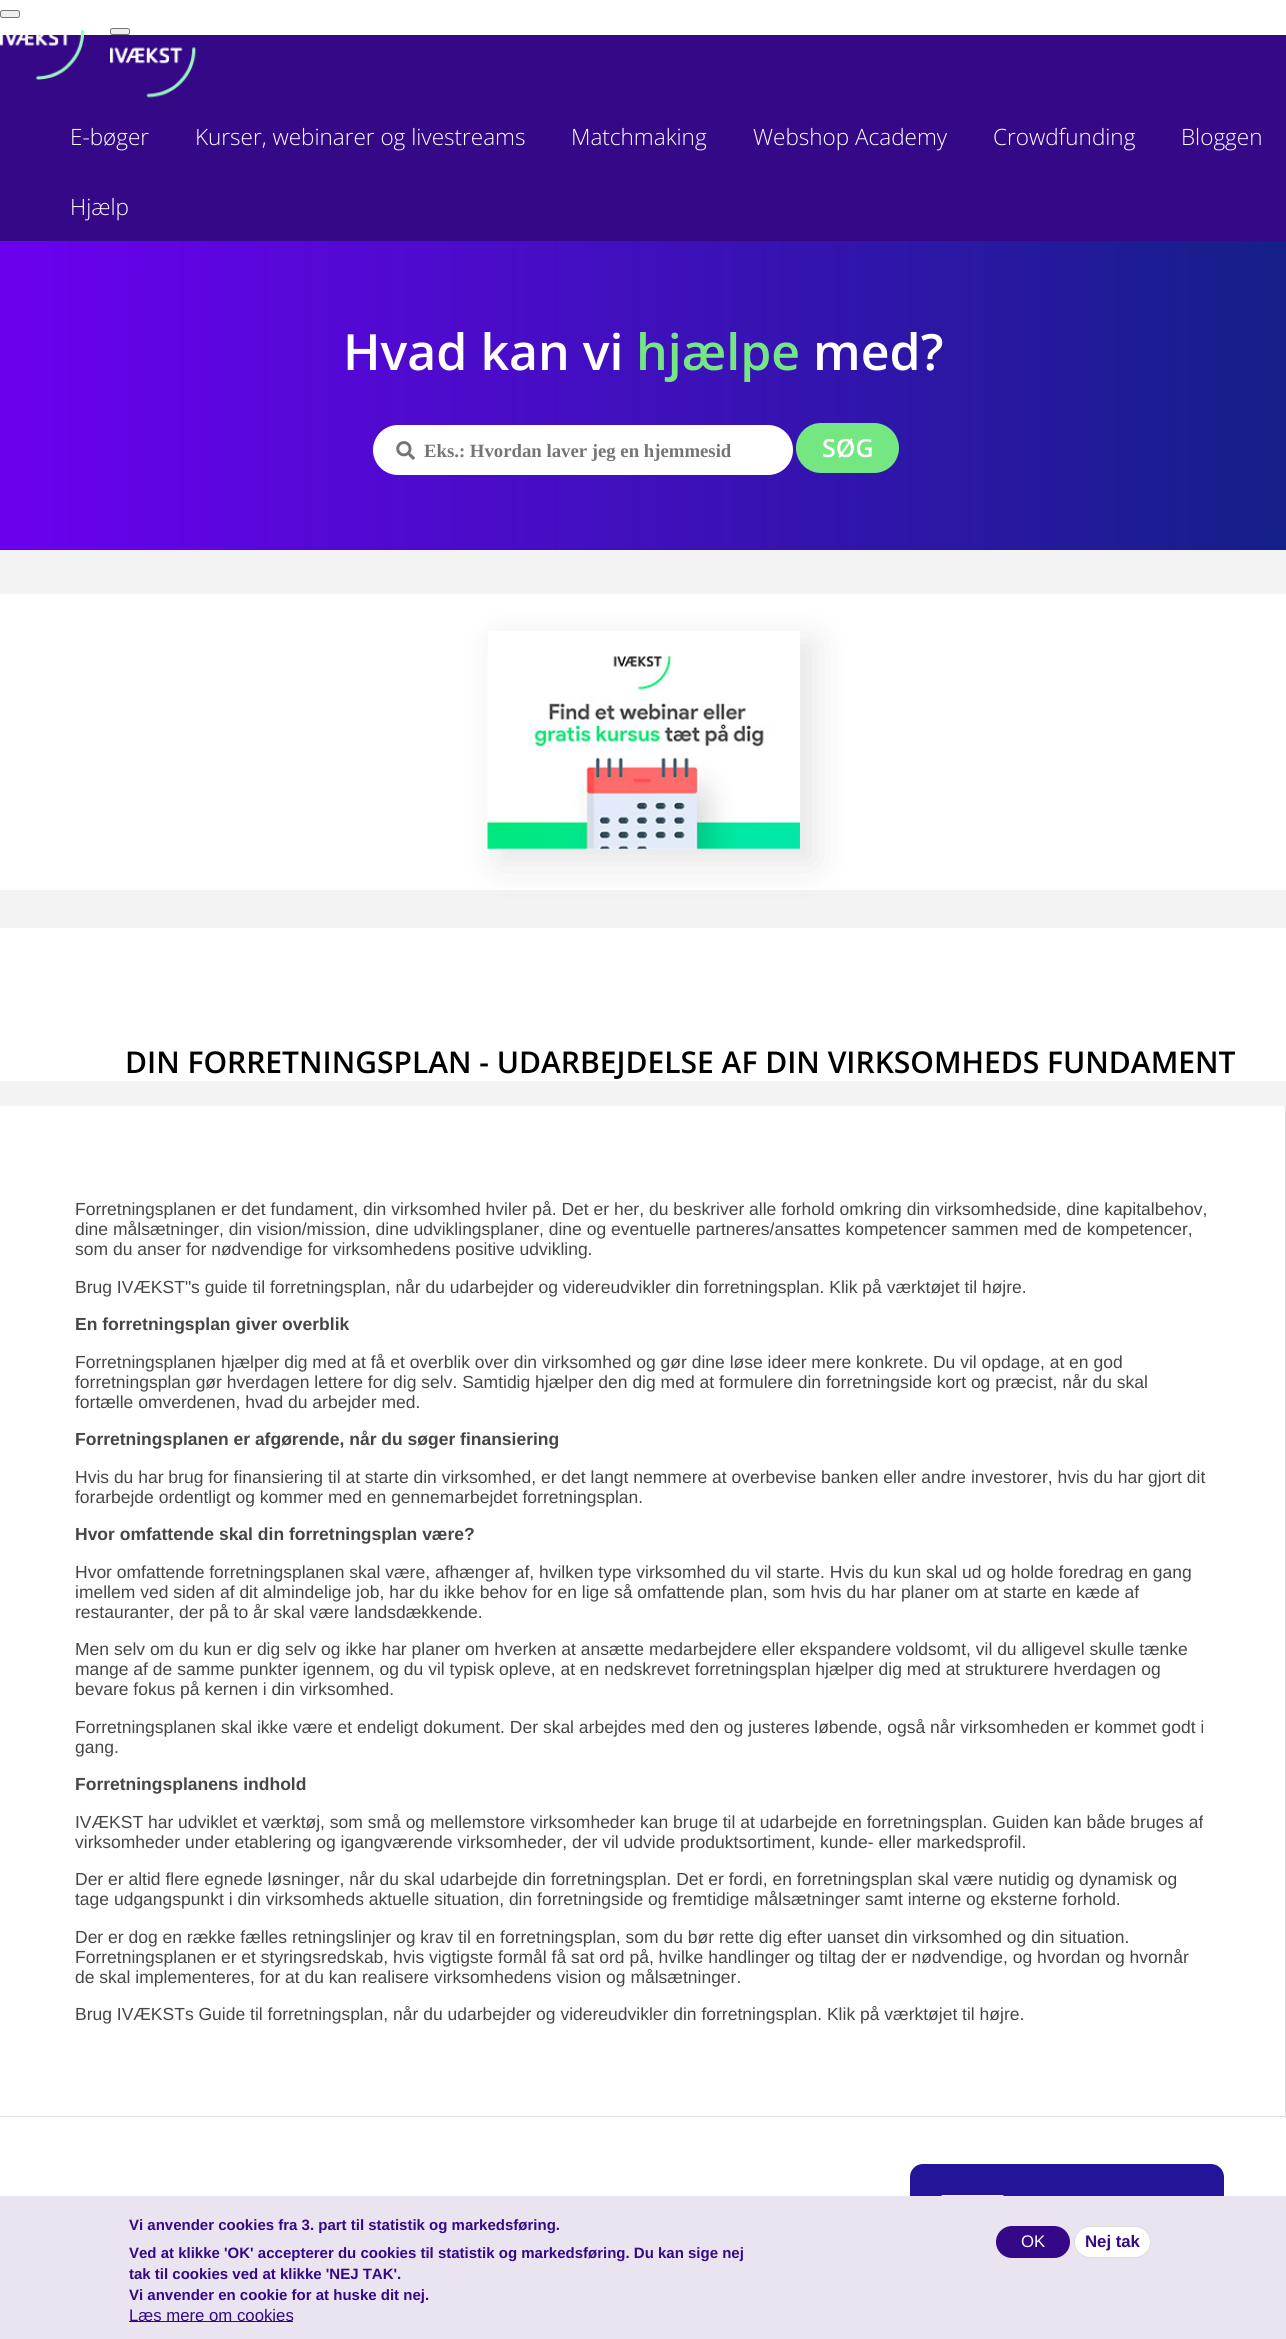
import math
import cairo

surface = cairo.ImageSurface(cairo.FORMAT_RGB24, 1286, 2339)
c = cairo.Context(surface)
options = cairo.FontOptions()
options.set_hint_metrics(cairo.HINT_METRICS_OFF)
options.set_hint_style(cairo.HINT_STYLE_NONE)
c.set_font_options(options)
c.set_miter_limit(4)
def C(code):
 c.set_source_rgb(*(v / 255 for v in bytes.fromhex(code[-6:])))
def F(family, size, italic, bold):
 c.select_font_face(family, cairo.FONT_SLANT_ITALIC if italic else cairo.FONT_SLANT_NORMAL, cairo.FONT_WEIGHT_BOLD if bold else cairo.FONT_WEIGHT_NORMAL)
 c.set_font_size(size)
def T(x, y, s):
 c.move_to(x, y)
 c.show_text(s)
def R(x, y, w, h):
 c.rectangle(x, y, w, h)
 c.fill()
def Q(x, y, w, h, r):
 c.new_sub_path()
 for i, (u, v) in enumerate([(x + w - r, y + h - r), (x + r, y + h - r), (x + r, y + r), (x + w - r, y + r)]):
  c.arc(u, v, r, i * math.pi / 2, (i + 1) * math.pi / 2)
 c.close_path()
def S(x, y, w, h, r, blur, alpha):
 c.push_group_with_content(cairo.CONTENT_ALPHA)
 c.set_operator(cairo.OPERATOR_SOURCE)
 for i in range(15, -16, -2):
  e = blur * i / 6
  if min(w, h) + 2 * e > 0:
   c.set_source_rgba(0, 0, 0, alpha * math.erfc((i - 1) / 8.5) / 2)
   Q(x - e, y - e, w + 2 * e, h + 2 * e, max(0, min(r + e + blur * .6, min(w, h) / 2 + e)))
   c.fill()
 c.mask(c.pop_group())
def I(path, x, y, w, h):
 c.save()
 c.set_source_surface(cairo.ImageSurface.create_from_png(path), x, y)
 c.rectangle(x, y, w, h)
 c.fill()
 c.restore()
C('ffffff')
c.paint()
C('efefef')
Q(.5,10.5,19,7,2)
c.fill_preserve()
C('767676')
c.set_line_width(1)
c.stroke()
C('350888')
R(0,35,1286,206)
I('1.png',0,30,85,50)
C('efefef')
Q(110.5,28.5,19,6,2)
c.fill_preserve()
C('767676')
c.stroke()
I('2.png',110,47,87,51)
F('Open Sans Light',22.5,0,0)
C('ffffff')
T(70,145,'E-bøger')
T(195,145,'Kurser, webinarer og livestreams')
T(571,145,'Matchmaking')
T(753,145,'Webshop Academy')
T(993,145,'Crowdfunding')
T(1181,145,'Bloggen')
T(70,215,'Hjælp')
C('f3f3f3')
R(0,550,1286,556)
gradient = cairo.LinearGradient(0,396,1286,396)
gradient.add_color_stop_rgba(0,0.42,0,0.941,1)
gradient.add_color_stop_rgba(1,0.078,0.122,0.537,1)
c.set_source(gradient)
R(0,241,1286,309)
F('Open Sans SemiBold',50,0,0)
C('ffffff')
T(343,370,'Hvad kan vi')
C('74e783')
T(636,370,'hjælpe')
C('ffffff')
T(813,370,'med?')
Q(373,425,420,50,25)
c.fill()
I('3.png',396,441,19,19)
F('Liberation Serif',18.75,0,1)
C('757575')
T(424,457,'Eks.: Hvordan laver jeg en hjemmesid')
C('74e783')
Q(796,423,103,50,25)
c.fill()
F('Open Sans SemiBold',25,0,0)
C('ffffff')
T(822,457,'SØG')
R(0,594,1286,296)
c.save()
c.set_fill_rule(cairo.FILL_RULE_EVEN_ODD)
c.new_path()
c.move_to(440,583)
c.line_to(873,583)
c.line_to(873,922)
c.line_to(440,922)
c.close_path()
c.move_to(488,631)
c.line_to(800,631)
c.line_to(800,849)
c.line_to(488,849)
c.close_path()
c.clip()
C('000000')
S(498,641,317,223,0,19,.1)
c.restore()
I('4.png',487,656,313,193)
R(0,928,1286,153)
F('Open Sans SemiBold',30,0,0)
C('000000')
T(125,1073,'DIN FORRETNINGSPLAN - UDARBEJDELSE AF DIN VIRKSOMHEDS FUNDAMENT')
C('e0e0e0')
R(1285,1106,1,1012)
R(0,2116,1286,1)
F('Liberation Sans',17.5,0,0)
C('464646')
T(75,1215,'Forretningsplanen er det fundament, din virksomhed hviler på. Det er her, du beskriver alle forhold omkring din virksomhedside, dine kapitalbehov,')
T(75,1235,'dine målsætninger, din vision/mission, dine udviklingsplaner, dine og eventuelle partneres/ansattes kompetencer sammen med de kompetencer,')
T(75,1255,'som du anser for nødvendige for virksomhedens positive udvikling.')
T(75,1293,'Brug IVÆKST"s guide til forretningsplan, når du udarbejder og videreudvikler din forretningsplan. Klik på værktøjet til højre.')
F('Liberation Sans',17.5,0,1)
T(75,1330,'En forretningsplan giver overblik')
F('Liberation Sans',17.5,0,0)
T(75,1368,'Forretningsplanen hjælper dig med at få et overblik over din virksomhed og gør dine løse ideer mere konkrete. Du vil opdage, at en god')
T(75,1388,'forretningsplan gør hverdagen lettere for dig selv. Samtidig hjælper den dig med at formulere din forretningside kort og præcist, når du skal')
T(75,1408,'fortælle omverdenen, hvad du arbejder med.')
F('Liberation Sans',17.5,0,1)
T(75,1445,'Forretningsplanen er afgørende, når du søger finansiering')
F('Liberation Sans',17.5,0,0)
T(75,1483,'Hvis du har brug for finansiering til at starte din virksomhed, er det langt nemmere at overbevise banken eller andre investorer, hvis du har gjort dit')
T(75,1503,'forarbejde ordentligt og kommer med en gennemarbejdet forretningsplan.')
F('Liberation Sans',17.5,0,1)
T(75,1540,'Hvor omfattende skal din forretningsplan være?')
F('Liberation Sans',17.5,0,0)
T(75,1578,'Hvor omfattende forretningsplanen skal være, afhænger af, hvilken type virksomhed du vil starte. Hvis du kun skal ud og holde foredrag en gang')
T(75,1598,'imellem ved siden af dit almindelige job, har du ikke behov for en lige så omfattende plan, som hvis du har planer om at starte en kæde af')
T(75,1618,'restauranter, der på to år skal være landsdækkende.')
T(75,1655,'Men selv om du kun er dig selv og ikke har planer om hverken at ansætte medarbejdere eller ekspandere voldsomt, vil du alligevel skulle tænke')
T(75,1675,'mange af de samme punkter igennem, og du vil typisk opleve, at en nedskrevet forretningsplan hjælper dig med at strukturere hverdagen og')
T(75,1695,'bevare fokus på kernen i din virksomhed.')
T(75,1733,'Forretningsplanen skal ikke være et endeligt dokument. Der skal arbejdes med den og justeres løbende, også når virksomheden er kommet godt i')
T(75,1753,'gang.')
F('Liberation Sans',17.5,0,1)
T(75,1790,'Forretningsplanens indhold')
F('Liberation Sans',17.5,0,0)
T(75,1828,'IVÆKST har udviklet et værktøj, som små og mellemstore virksomheder kan bruge til at udarbejde en forretningsplan. Guiden kan både bruges af')
T(75,1848,'virksomheder under etablering og igangværende virksomheder, der vil udvide produktsortiment, kunde- eller markedsprofil.')
T(75,1885,'Der er altid flere egnede løsninger, når du skal udarbejde din forretningsplan. Det er fordi, en forretningsplan skal være nutidig og dynamisk og')
T(75,1905,'tage udgangspunkt i din virksomheds aktuelle situation, din forretningside og fremtidige målsætninger samt interne og eksterne forhold.')
T(75,1943,'Der er dog en række fælles retningslinjer og krav til en forretningsplan, som du bør rette dig efter uanset din virksomhed og din situation.')
T(75,1963,'Forretningsplanen er et styringsredskab, hvis vigtigste formål få sat ord på, hvilke handlinger og tiltag der er nødvendige, og hvordan og hvornår')
T(75,1983,'de skal implementeres, for at du kan realisere virksomhedens vision og målsætninger.')
T(75,2020,'Brug IVÆKSTs Guide til forretningsplan, når du udarbejder og videreudvikler din forretningsplan. Klik på værktøjet til højre.')
C('241499')
Q(910,2164,314,164,13)
c.fill()
I('5.png',941,2195,63,1)
C('e9e4ef')
R(0,2196,1286,143)
F('Liberation Sans',15,0,1)
C('350888')
T(129,2230,'Vi anvender cookies fra 3. part til statistik og markedsføring.')
T(129,2258,'Ved at klikke \'OK\' accepterer du cookies til statistik og markedsføring. Du kan sige nej')
T(129,2279,'tak til cookies ved at klikke \'NEJ TAK\'.')
T(129,2300,'Vi anvender en cookie for at huske dit nej.')
R(129,2321,164,1)
F('Liberation Sans',16.75,0,0)
T(129,2321,'Læs mere om cookies')
Q(996,2226,74,32,16)
c.fill()
C('ffffff')
T(1021,2247,'OK')
Q(1074.5,2226.5,76,31,15.5)
c.fill_preserve()
C('dcdcdc')
c.stroke()
F('Liberation Sans',16.75,0,1)
C('350888')
T(1085,2247,'Nej tak')
surface.write_to_png('o.png')
